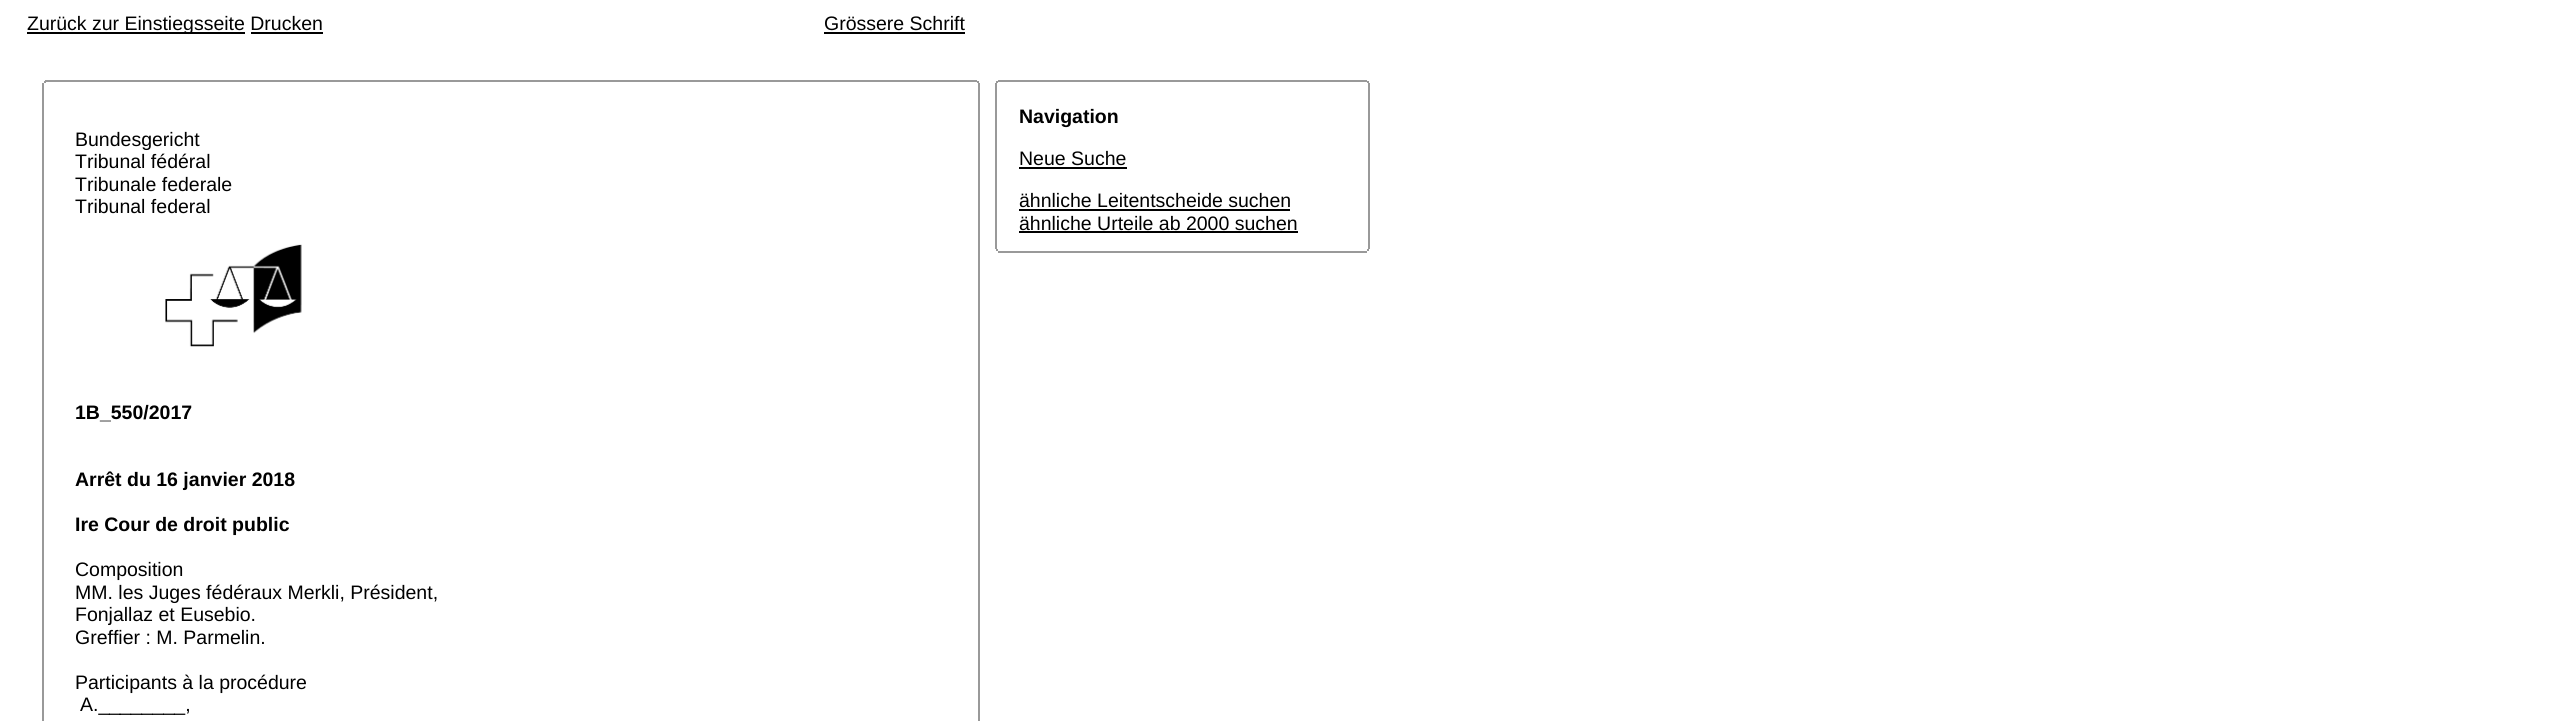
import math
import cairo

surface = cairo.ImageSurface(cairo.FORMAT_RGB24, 2576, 721)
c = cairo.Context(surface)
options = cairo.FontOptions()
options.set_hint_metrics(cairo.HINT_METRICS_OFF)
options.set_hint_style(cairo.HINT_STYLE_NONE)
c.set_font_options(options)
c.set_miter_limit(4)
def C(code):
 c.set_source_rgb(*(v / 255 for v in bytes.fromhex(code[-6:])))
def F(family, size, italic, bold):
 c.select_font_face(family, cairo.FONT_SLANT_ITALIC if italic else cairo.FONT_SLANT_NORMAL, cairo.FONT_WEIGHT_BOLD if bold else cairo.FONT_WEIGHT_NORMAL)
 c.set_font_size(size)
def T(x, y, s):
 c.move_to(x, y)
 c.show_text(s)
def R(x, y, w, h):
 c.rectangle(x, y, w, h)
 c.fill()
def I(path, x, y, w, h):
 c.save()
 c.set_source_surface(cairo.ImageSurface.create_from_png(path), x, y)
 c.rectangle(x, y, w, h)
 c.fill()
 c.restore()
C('ffffff')
c.paint()
C('000000')
R(27,32,218,2)
F('Liberation Sans',19.5,0,0)
T(27,30,'Zurück zur Einstiegsseite Drucken')
R(251,32,72,2)
T(824,30,'Grössere Schrift')
R(824,32,141,2)
C('999999')
R(45,80,932,2)
R(977,81,2,2)
R(44,81,2,2)
R(978,83,2,638)
R(42,83,2,638)
C('000000')
T(75,146,'Bundesgericht')
T(75,168,'Tribunal fédéral')
T(75,191,'Tribunale federale')
T(75,213,'Tribunal federal')
I('1.png',165,244,137,103)
F('Liberation Sans',19.5,0,1)
T(75,419,'1B_550/2017')
T(75,486,'Arrêt du 16 janvier 2018')
T(75,531,'Ire Cour de droit public')
F('Liberation Sans',19.5,0,0)
T(75,576,'Composition')
T(75,599,'MM. les Juges fédéraux Merkli, Président,')
T(75,621,'Fonjallaz et Eusebio.')
T(75,644,'Greffier : M. Parmelin.')
T(75,689,'Participants à la procédure')
T(80,711,'A.________,')
C('999999')
R(998,80,369,2)
R(1367,81,2,2)
R(996,81,2,2)
R(1368,83,2,166)
R(995,83,2,166)
F('Liberation Sans',19.5,0,1)
C('000000')
T(1019,123,'Navigation')
F('Liberation Sans',19.5,0,0)
T(1019,165,'Neue Suche')
R(1019,167,108,2)
T(1019,207,'ähnliche Leitentscheide suchen')
R(1019,209,271,2)
T(1019,230,'ähnliche Urteile ab 2000 suchen')
R(1019,231,279,2)
C('999999')
R(1367,249,2,2)
R(996,249,2,2)
R(998,251,369,2)
surface.write_to_png('o.png')
